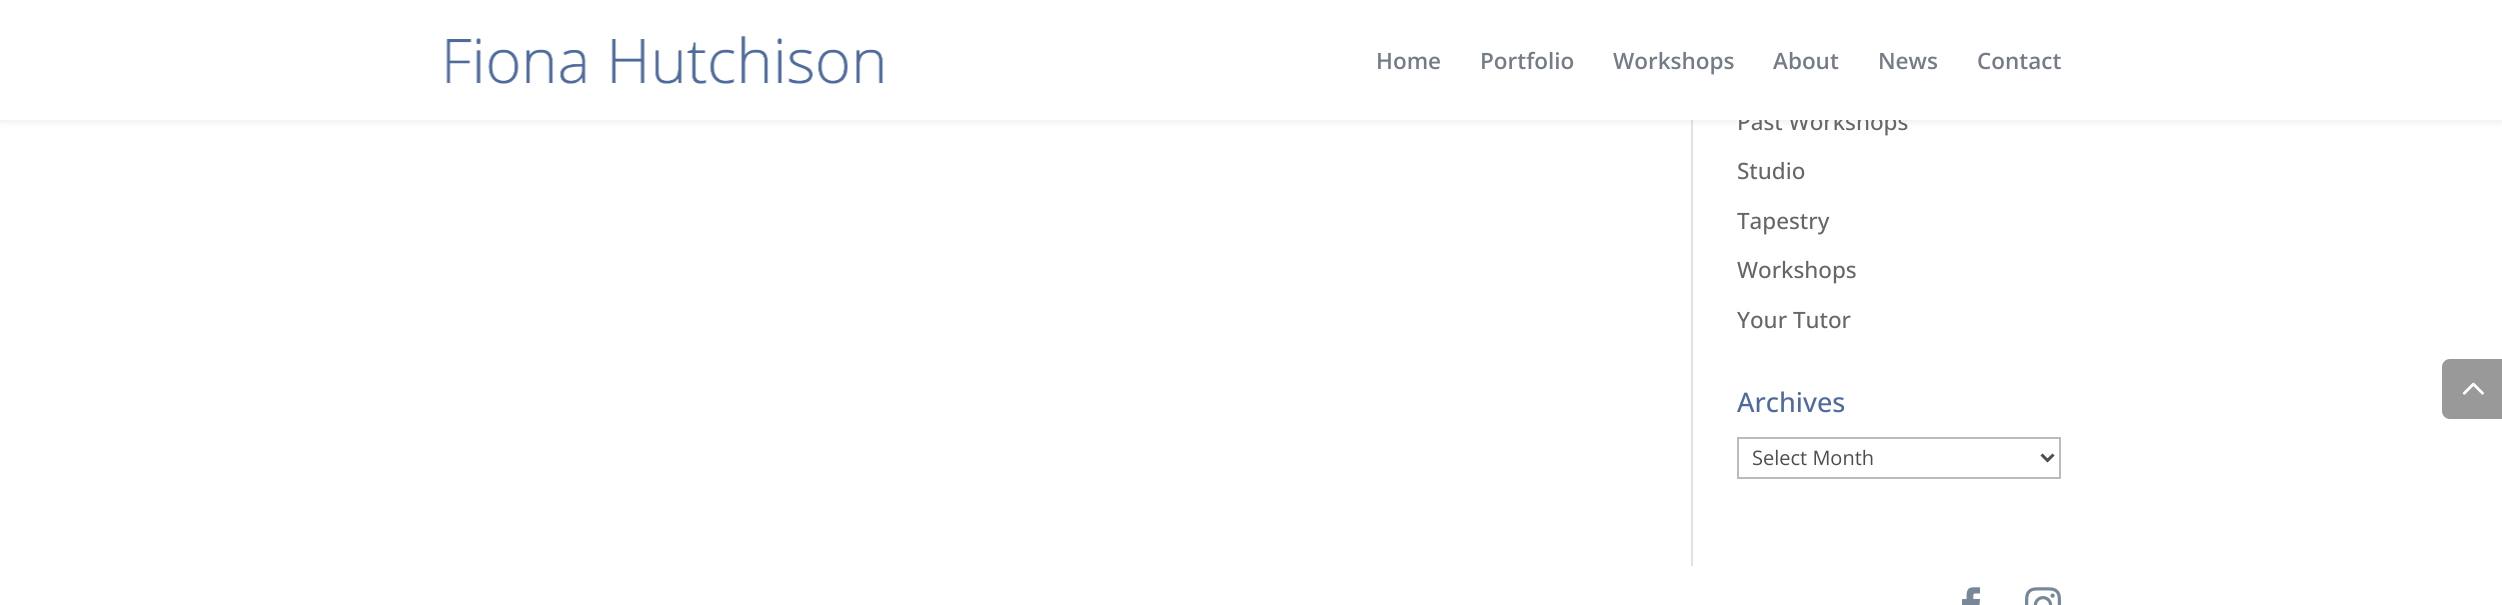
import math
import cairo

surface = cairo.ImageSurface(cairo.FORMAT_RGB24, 2502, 605)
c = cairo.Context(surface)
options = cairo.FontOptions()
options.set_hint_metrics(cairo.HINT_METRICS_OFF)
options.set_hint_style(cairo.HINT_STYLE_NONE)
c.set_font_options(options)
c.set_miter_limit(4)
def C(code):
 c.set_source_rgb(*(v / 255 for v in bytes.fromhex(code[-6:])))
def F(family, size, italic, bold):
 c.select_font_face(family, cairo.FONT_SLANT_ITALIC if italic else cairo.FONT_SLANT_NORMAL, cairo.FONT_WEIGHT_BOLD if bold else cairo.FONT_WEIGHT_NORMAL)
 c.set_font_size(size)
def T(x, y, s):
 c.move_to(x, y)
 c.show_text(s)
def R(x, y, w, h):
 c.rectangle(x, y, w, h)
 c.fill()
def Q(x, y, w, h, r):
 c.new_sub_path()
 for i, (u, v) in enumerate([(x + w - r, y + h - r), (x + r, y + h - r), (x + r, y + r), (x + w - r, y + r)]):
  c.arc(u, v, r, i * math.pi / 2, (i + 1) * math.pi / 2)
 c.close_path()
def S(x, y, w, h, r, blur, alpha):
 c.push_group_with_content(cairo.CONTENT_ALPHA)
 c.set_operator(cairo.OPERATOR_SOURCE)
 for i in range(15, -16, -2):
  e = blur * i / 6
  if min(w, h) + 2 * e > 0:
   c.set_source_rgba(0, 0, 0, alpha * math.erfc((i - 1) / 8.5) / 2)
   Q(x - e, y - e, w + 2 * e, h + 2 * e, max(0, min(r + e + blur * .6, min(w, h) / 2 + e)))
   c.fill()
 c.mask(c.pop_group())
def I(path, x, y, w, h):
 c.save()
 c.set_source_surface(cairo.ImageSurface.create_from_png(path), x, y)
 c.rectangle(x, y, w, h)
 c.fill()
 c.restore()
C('ffffff')
c.paint()
C('e2e2e2')
R(1691,120,2,446)
C('000000')
S(0,0,2502,120,0,5,.1)
F('Open Sans Medium',22.5,0,0)
C('666666')
T(1737,130,'Past Workshops')
C('ffffff')
R(0,0,2502,120)
I('1.png',446,36,437,48)
F('Open Sans SemiBold',22.5,0,0)
C('757c87')
T(1376,69,'Home')
T(1480,69,'Portfolio')
T(1613,69,'Workshops')
T(1773,69,'About')
T(1878,69,'News')
T(1977,69,'Contact')
F('Open Sans Medium',22.5,0,0)
C('666666')
T(1737,179,'Studio')
T(1737,229,'Tapestry')
T(1737,278,'Workshops')
T(1737,328,'Your Tutor')
F('Open Sans Medium',27,0,0)
C('4f6b9b')
T(1737,412,'Archives')
c.rectangle(1738,438,322,40)
C('bbbbbb')
c.stroke()
c.new_path()
c.move_to(2041.5,454.5)
c.line_to(2047.5,460.5)
c.line_to(2053.5,454.5)
C('4e4e4e')
c.set_line_width(3)
c.stroke()
F('Open Sans',20,0,0)
T(1752,465,'Select Month')
C('999999')
c.new_path()
c.move_to(2450,359)
c.line_to(2502,359)
c.line_to(2502,419)
c.line_to(2450,419)
c.curve_to(2445.5,419,2442,415.5,2442,411)
c.line_to(2442,367)
c.curve_to(2442,362.5,2445.5,359,2450,359)
c.close_path()
c.fill()
I('2.png',2462,382,22,13)
I('3.png',1962,587,19,18)
I('4.png',2025,587,36,18)
surface.write_to_png('o.png')
